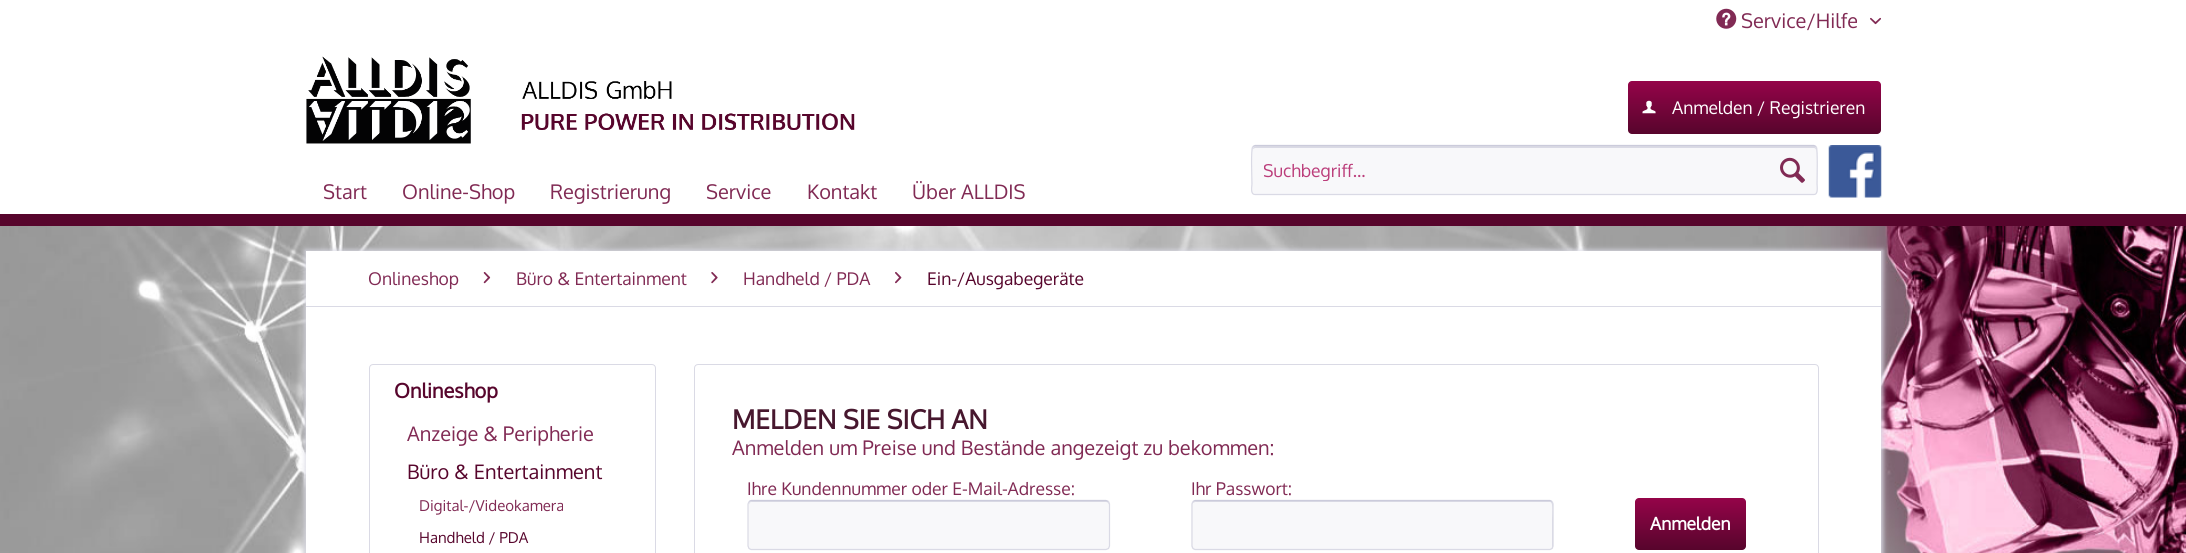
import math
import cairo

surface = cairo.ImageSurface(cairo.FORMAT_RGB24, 2186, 553)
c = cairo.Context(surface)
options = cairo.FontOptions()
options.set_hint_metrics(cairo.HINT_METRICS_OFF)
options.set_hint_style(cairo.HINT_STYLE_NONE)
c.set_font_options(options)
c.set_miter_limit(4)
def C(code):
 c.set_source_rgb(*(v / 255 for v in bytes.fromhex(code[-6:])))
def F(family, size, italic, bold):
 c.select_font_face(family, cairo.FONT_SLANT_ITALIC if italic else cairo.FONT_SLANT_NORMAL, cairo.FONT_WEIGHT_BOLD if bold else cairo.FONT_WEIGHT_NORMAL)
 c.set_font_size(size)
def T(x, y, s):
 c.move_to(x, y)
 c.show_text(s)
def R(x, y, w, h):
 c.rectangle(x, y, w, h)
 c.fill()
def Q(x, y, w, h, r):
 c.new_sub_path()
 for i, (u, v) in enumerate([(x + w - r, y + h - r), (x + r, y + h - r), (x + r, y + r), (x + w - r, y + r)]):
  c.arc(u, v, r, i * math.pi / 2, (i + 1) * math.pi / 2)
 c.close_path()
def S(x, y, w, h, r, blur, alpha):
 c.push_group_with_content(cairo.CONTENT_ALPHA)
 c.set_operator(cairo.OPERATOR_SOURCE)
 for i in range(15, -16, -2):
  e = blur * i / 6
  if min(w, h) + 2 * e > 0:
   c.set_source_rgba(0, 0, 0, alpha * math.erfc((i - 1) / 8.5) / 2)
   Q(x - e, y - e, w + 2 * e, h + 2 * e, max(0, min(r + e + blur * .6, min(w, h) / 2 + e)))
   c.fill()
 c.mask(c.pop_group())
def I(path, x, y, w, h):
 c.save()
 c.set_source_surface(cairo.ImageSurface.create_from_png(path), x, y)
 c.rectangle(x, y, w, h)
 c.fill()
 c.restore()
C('ffffff')
c.paint()
I('1.png',0,226,2186,327)
I('2.png',1716,8,21,21)
F('Oxygen',20,0,0)
C('812a54')
T(1741,28,'Service/Hilfe')
I('3.png',1870,17,11,8)
I('4.png',306,56,549,88)
gradient = cairo.LinearGradient(1754,81,1754,134)
gradient.add_color_stop_rgba(0,0.584,0.016,0.286,1)
gradient.add_color_stop_rgba(1,0.341,0.02,0.173,1)
c.set_source(gradient)
Q(1628,81,253,53,4)
c.fill()
I('5.png',1642,100,14,14)
F('Oxygen',17.5,0,0)
C('ffffff')
T(1672,114,'Anmelden / Registrieren')
C('f8f8fa')
Q(1251,145,567,50,4)
c.fill()
C('dadae5')
c.new_path()
c.move_to(1255,148)
c.line_to(1814,148)
c.curve_to(1815,148,1816,149,1816,150)
c.curve_to(1816,148,1816,146,1814,146)
c.line_to(1256,146)
c.curve_to(1254,146,1253,147,1253,149)
c.close_path()
c.fill()
c.new_path()
c.move_to(1253,146.5)
c.line_to(1255,145.5)
c.line_to(1814,145.5)
c.line_to(1816,146.5)
C('cbcbdb')
c.set_line_width(1.2)
c.stroke()
c.new_path()
c.move_to(1816,146.5)
c.curve_to(1818,148.5,1817,179,1817,184)
c.curve_to(1817,186,1818.5,194.5,1814,194.5)
c.line_to(1255,194.5)
c.curve_to(1250,194.5,1252,186,1252,184)
c.curve_to(1252,179,1250.5,148.5,1253,146.5)
C('dadae5')
c.stroke()
c.save()
c.rectangle(1264,160,500,21)
c.clip()
C('bb3d7a')
T(1263,177,'Suchbegriff...')
c.restore()
I('6.png',1780,157,25,26)
I('7.png',1828,145,54,53)
C('57052c')
R(0,214,2186,12)
F('Oxygen',20,0,0)
C('812a54')
T(323,199,'Start')
T(402,199,'Online-Shop')
T(550,199,'Registrierung')
T(706,199,'Service')
T(807,199,'Kontakt')
T(912,199,'Über ALLDIS')
C('dadae5')
S(305,250,1578,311,0,2.5,1)
C('ffffff')
R(306,251,1575,302)
C('dadae5')
R(306,306,1575,1)
F('Oxygen',17.5,0,0)
C('812a54')
T(368,285,'Onlineshop')
I('8.png',483,272,8,12)
T(516,285,'Büro & Entertainment')
I('9.png',711,272,7,12)
T(743,285,'Handheld / PDA')
I('10.png',895,272,7,12)
C('57052c')
T(927,285,'Ein-/Ausgabegeräte')
Q(369.5,364.5,286,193,3.5)
C('dadae5')
c.set_line_width(1)
c.stroke()
F('Oxygen',20,0,1)
C('57052c')
T(394,398,'Onlineshop')
F('Oxygen',20,0,0)
C('812a54')
T(407,441,'Anzeige & Peripherie')
C('57052c')
T(407,479,'Büro & Entertainment')
F('Oxygen',15,0,0)
C('812a54')
T(419,511,'Digital-/Videokamera')
C('57052c')
T(419,543,'Handheld / PDA')
Q(694.5,364.5,1124,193,3.5)
C('dadae5')
c.stroke()
F('Oxygen',26.25,0,1)
C('47172e')
T(732,429,'MELDEN SIE SICH AN')
F('Oxygen',20,0,0)
C('812a54')
T(732,455,'Anmelden um Preise und Bestände angezeigt zu bekommen:')
F('Oxygen',17.5,0,0)
T(747,495,'Ihre Kundennummer oder E-Mail-Adresse:')
C('f8f8fa')
Q(748,500,362,50,4)
c.fill()
C('dadae5')
c.new_path()
c.move_to(751,502)
c.line_to(1106,502)
c.curve_to(1108,502,1109,504,1109,505)
c.curve_to(1109,503,1109,501,1106,501)
c.line_to(752,501)
c.curve_to(749,501,749,503,749,505)
c.curve_to(749,504,750,502,751,502)
c.close_path()
c.fill()
c.new_path()
c.move_to(749,501.5)
c.line_to(751,500.5)
c.line_to(1106,500.5)
c.line_to(1108.5,501.5)
C('cbcbdb')
c.set_line_width(1.2)
c.stroke()
c.new_path()
c.move_to(1108.5,501.5)
c.line_to(1109.5,504)
c.line_to(1109.5,546)
c.line_to(1108.5,548.5)
c.line_to(1106,549.5)
c.line_to(751,549.5)
c.line_to(749,548.5)
c.line_to(748,546)
c.line_to(748,504)
c.line_to(749,501.5)
C('dadae5')
c.stroke()
C('812a54')
T(1191,495,'Ihr Passwort:')
C('f8f8fa')
Q(1191,500,363,50,4)
c.fill()
C('dadae5')
c.new_path()
c.move_to(1195,502)
c.line_to(1550,502)
c.curve_to(1554,502,1552,518,1552,519)
c.line_to(1552,549)
c.curve_to(1553,548,1553,547,1553,546)
c.line_to(1553,504)
c.curve_to(1553,502,1552,501,1550,501)
c.line_to(1196,501)
c.curve_to(1194,501,1193,502,1193,503)
c.close_path()
c.fill()
c.new_path()
c.move_to(1193,501.5)
c.line_to(1195,500.5)
c.line_to(1550,500.5)
c.line_to(1552,501.5)
C('cbcbdb')
c.stroke()
c.new_path()
c.move_to(1552,501.5)
c.line_to(1553,504)
c.line_to(1553,546)
c.line_to(1552,548.5)
c.line_to(1550,549.5)
c.line_to(1195,549.5)
c.line_to(1193,548.5)
c.line_to(1192,546)
c.line_to(1192,504)
c.line_to(1193,501.5)
C('dadae5')
c.stroke()
gradient = cairo.LinearGradient(1691,498,1691,550)
gradient.add_color_stop_rgba(0,0.584,0.016,0.286,1)
gradient.add_color_stop_rgba(1,0.341,0.02,0.173,1)
c.set_source(gradient)
Q(1635,498,111,52,4)
c.fill()
F('Oxygen',17.5,0,1)
C('ffffff')
T(1650,530,'Anmelden')
surface.write_to_png('o.png')
